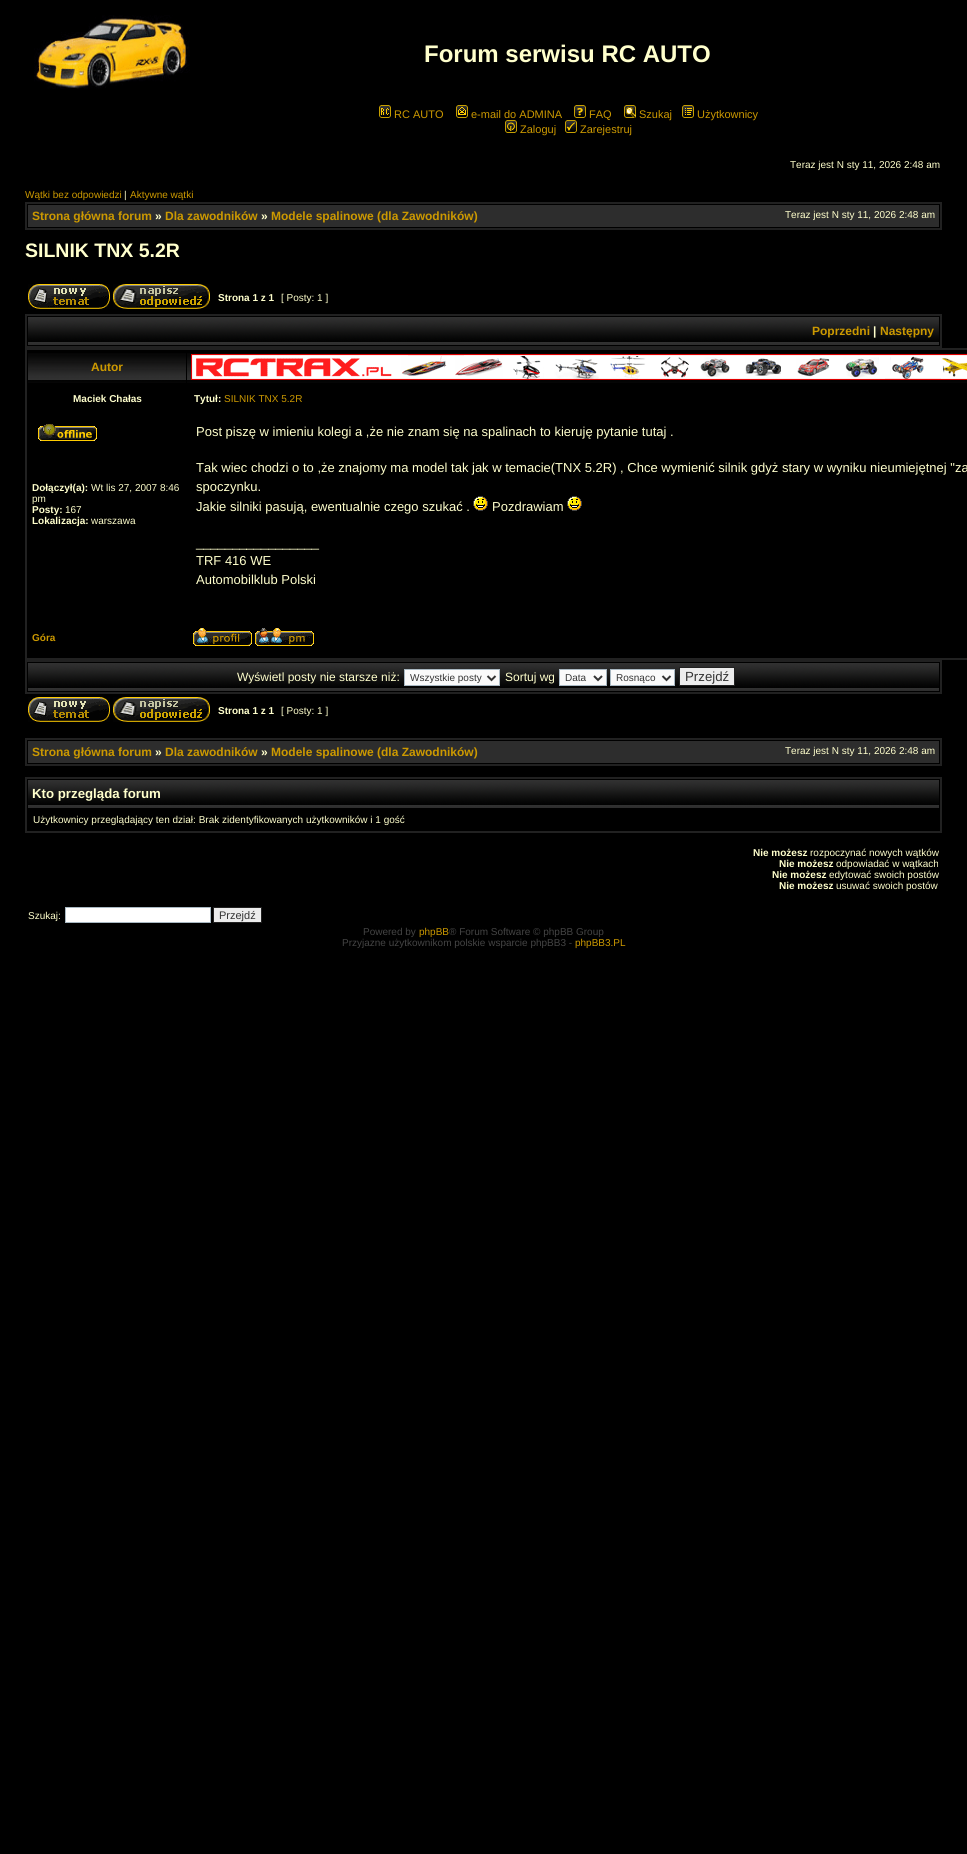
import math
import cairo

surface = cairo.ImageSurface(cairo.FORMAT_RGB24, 967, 1854)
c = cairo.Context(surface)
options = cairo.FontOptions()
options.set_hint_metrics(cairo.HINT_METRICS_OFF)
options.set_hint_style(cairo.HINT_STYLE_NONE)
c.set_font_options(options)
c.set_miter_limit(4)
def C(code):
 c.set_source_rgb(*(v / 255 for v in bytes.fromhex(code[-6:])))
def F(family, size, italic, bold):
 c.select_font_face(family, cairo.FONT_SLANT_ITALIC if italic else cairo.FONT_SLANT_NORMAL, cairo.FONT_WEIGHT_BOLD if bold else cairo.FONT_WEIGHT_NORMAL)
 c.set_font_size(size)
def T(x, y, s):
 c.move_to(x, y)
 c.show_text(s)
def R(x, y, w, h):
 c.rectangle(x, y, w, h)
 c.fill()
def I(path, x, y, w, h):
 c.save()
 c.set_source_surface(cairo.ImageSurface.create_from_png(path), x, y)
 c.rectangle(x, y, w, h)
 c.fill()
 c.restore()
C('000000')
c.paint()
I('1.png',34,15,156,74)
F('Liberation Sans',24,0,1)
C('ffffcc')
T(424,62,'Forum serwisu RC AUTO')
I('2.png',379,105,12,13)
F('Liberation Sans',11,0,0)
C('cc9900')
T(394,118,'RC AUTO')
I('3.png',456,105,12,13)
T(471,118,'e-mail do ADMINA')
I('4.png',574,105,12,13)
T(589,118,'FAQ')
I('5.png',624,105,12,13)
T(639,118,'Szukaj')
I('6.png',682,105,12,13)
T(697,118,'Użytkownicy')
I('7.png',505,120,12,13)
T(520,133,'Zaloguj')
I('8.png',565,120,12,13)
T(580,133,'Zarejestruj')
F('Liberation Sans',10,0,0)
C('ffffcc')
T(790,168,'Teraz jest N sty 11, 2026 2:48 am')
C('cc9900')
T(25,198,'Wątki bez odpowiedzi')
C('ffffcc')
T(124,198,'|')
C('cc9900')
T(130,198,'Aktywne wątki')
c.rectangle(26,203,915,26)
C('212121')
c.stroke()
C('2d2d2d')
R(28,205,911,22)
F('Liberation Sans',12,0,1)
C('cc9900')
T(32,220,'Strona główna forum')
C('ffffcc')
T(155,220,'»')
C('cc9900')
T(165,220,'Dla zawodników')
C('ffffcc')
T(261,220,'»')
C('cc9900')
T(271,220,'Modele spalinowe (dla Zawodników)')
F('Liberation Sans',10,0,0)
C('ffffcc')
T(785,218,'Teraz jest N sty 11, 2026 2:48 am')
F('Liberation Sans',19.5,0,1)
T(25,257,'SILNIK TNX 5.2R')
I('9.png',28,284,82,25)
I('10.png',113,284,97,25)
F('Liberation Sans',10,0,1)
T(218,301,'Strona 1 z 1')
F('Liberation Sans',10,0,0)
T(281,301,'[ Posty: 1 ]')
c.rectangle(26,315,915,32)
C('212121')
c.stroke()
I('11.png',28,317,911,28)
F('Liberation Sans',12,0,1)
C('cc9900')
T(812,335,'Poprzedni')
C('ffffcc')
T(873,335,'|')
C('cc9900')
T(880,335,'Następny')
c.rectangle(26,349,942,310)
C('212121')
c.stroke()
I('12.png',28,353,158,30)
C('cc9900')
T(91,371,'Autor')
I('13.png',187,353,780,30)
I('14.png',191,354,776,26)
F('Liberation Sans',10,0,1)
C('ffffcc')
T(73,402,'Maciek Chałas')
T(194,402,'Tytuł:')
F('Liberation Sans',10,0,0)
C('cc9900')
T(224,402,'SILNIK TNX 5.2R')
I('15.png',38,424,59,17)
F('Liberation Sans',10,0,1)
C('ffffcc')
T(32,491,'Dołączył(a):')
F('Liberation Sans',10,0,0)
T(91,491,'Wt lis 27, 2007 8:46')
T(32,502,'pm')
F('Liberation Sans',10,0,1)
T(32,513,'Posty:')
F('Liberation Sans',10,0,0)
T(65,513,'167')
F('Liberation Sans',10,0,1)
T(32,524,'Lokalizacja:')
F('Liberation Sans',10,0,0)
T(91,524,'warszawa')
F('Liberation Sans',13,0,0)
T(196,436,'Post piszę w imieniu kolegi a ,że nie znam się na spalinach to kieruję pytanie tutaj .')
T(196,472,'Tak wiec chodzi o to ,że znajomy ma model tak jak w temacie(TNX 5.2R) , Chce wymienić silnik gdyż stary w wyniku nieumiejętnej "za')
T(196,491,'spoczynku.')
T(196,511,'Jakie silniki pasują, ewentualnie czego szukać .')
I('16.png',473,496,15,15)
T(492,511,'Pozdrawiam')
I('16.png',567,496,15,15)
T(196,547,'_________________')
T(196,565,'TRF 416 WE')
T(196,584,'Automobilklub Polski')
F('Liberation Sans',10,0,1)
C('cc9900')
T(32,641,'Góra')
I('17.png',193,628,59,18)
I('18.png',255,628,59,18)
c.rectangle(26,661,915,32)
C('212121')
c.stroke()
I('11.png',28,663,911,28)
F('Liberation Sans',12,0,0)
C('ffffcc')
T(237,681,'Wyświetl posty nie starsze niż:')
C('fafafa')
c.rectangle(404.5,669.5,95,16)
c.fill_preserve()
C('a9b8c2')
c.set_line_width(1)
c.stroke()
c.new_path()
c.move_to(487.5,676)
c.line_to(491.5,680)
c.line_to(495.5,676)
C('333333')
c.set_line_width(2)
c.stroke()
F('Liberation Sans',10,0,0)
T(410,681,'Wszystkie posty')
F('Liberation Sans',12,0,0)
C('ffffcc')
T(505,681,'Sortuj wg')
C('fafafa')
c.rectangle(559.5,669.5,47,16)
c.fill_preserve()
C('a9b8c2')
c.set_line_width(1)
c.stroke()
c.new_path()
c.move_to(594,676)
c.line_to(598,680)
c.line_to(602,676)
C('333333')
c.set_line_width(2)
c.stroke()
F('Liberation Sans',10,0,0)
T(565,681,'Data')
C('fafafa')
c.rectangle(610.5,669.5,64,16)
c.fill_preserve()
C('a9b8c2')
c.set_line_width(1)
c.stroke()
c.new_path()
c.move_to(662.5,676)
c.line_to(666.5,680)
c.line_to(670.5,676)
C('333333')
c.set_line_width(2)
c.stroke()
T(616,681,'Rosnąco')
C('ececec')
c.rectangle(679.5,667.5,55,18)
c.fill_preserve()
C('212121')
c.set_line_width(1)
c.stroke()
F('Liberation Sans',13.25,0,0)
C('333333')
T(685,681,'Przejdź')
I('9.png',28,697,82,25)
I('10.png',113,697,97,25)
F('Liberation Sans',10,0,1)
C('ffffcc')
T(218,714,'Strona 1 z 1')
F('Liberation Sans',10,0,0)
T(281,714,'[ Posty: 1 ]')
c.rectangle(26,739,915,26)
C('212121')
c.set_line_width(2)
c.stroke()
C('2d2d2d')
R(28,741,911,22)
F('Liberation Sans',12,0,1)
C('cc9900')
T(32,756,'Strona główna forum')
C('ffffcc')
T(155,756,'»')
C('cc9900')
T(165,756,'Dla zawodników')
C('ffffcc')
T(261,756,'»')
C('cc9900')
T(271,756,'Modele spalinowe (dla Zawodników)')
F('Liberation Sans',10,0,0)
C('ffffcc')
T(785,754,'Teraz jest N sty 11, 2026 2:48 am')
c.rectangle(26,778,915,54)
C('212121')
c.stroke()
I('11.png',28,780,911,28)
F('Liberation Sans',13.25,0,1)
C('ffffcc')
T(32,798,'Kto przegląda forum')
F('Liberation Sans',10,0,0)
T(33,823,'Użytkownicy przeglądający ten dział: Brak zidentyfikowanych użytkowników i 1 gość')
F('Liberation Sans',10,0,1)
T(753,856,'Nie możesz')
F('Liberation Sans',10,0,0)
T(810,856,'rozpoczynać nowych wątków')
F('Liberation Sans',10,0,1)
T(779,867,'Nie możesz')
F('Liberation Sans',10,0,0)
T(836,867,'odpowiadać w wątkach')
F('Liberation Sans',10,0,1)
T(772,878,'Nie możesz')
F('Liberation Sans',10,0,0)
T(829,878,'edytować swoich postów')
F('Liberation Sans',10,0,1)
T(779,889,'Nie możesz')
F('Liberation Sans',10,0,0)
T(836,889,'usuwać swoich postów')
T(28,919,'Szukaj:')
C('ffffff')
c.rectangle(65.5,907.5,145,15)
c.fill_preserve()
C('a9b8c2')
c.set_line_width(1)
c.stroke()
C('ececec')
c.rectangle(213.5,907.5,48,15)
c.fill_preserve()
C('212121')
c.stroke()
F('Liberation Sans',11,0,0)
C('333333')
T(219,919,'Przejdź')
F('Liberation Sans',10,0,0)
C('444444')
T(363,935,'Powered by')
C('cc9900')
T(419,935,'phpBB')
C('444444')
T(449,935,'® Forum Software © phpBB Group')
T(342,946,'Przyjazne użytkownikom polskie wsparcie phpBB3 -')
C('cc9900')
T(575,946,'phpBB3.PL')
surface.write_to_png('o.png')
